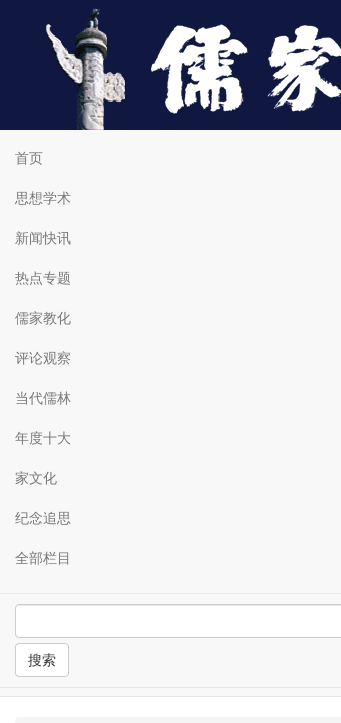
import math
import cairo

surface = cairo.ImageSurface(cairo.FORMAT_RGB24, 341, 723)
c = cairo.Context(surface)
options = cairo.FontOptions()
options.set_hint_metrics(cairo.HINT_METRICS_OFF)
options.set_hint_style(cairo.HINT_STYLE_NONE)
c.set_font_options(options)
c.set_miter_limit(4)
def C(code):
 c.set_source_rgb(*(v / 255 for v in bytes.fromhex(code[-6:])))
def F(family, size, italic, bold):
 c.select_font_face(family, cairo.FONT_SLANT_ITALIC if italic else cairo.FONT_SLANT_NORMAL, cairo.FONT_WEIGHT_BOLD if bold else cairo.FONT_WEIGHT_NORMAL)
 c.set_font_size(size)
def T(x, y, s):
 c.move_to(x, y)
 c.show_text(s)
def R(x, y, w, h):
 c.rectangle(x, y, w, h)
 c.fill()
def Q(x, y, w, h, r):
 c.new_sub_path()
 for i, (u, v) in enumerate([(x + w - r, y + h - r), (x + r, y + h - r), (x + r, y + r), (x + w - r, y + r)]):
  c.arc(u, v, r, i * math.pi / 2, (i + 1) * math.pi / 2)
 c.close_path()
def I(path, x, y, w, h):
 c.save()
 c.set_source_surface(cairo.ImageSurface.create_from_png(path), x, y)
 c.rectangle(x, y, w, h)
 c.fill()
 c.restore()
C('ffffff')
c.paint()
C('101842')
R(0,0,341,130)
I('1.png',45,8,296,122)
C('f8f8f8')
R(0,130,341,566)
C('e7e7e7')
R(0,696,341,1)
F('WenQuanYi Zen Hei Medium',14,0,0)
C('777777')
T(15,163,'首页')
T(15,203,'思想学术')
T(15,243,'新闻快讯')
T(15,283,'热点专题')
T(15,323,'儒家教化')
T(15,363,'评论观察')
T(15,403,'当代儒林')
T(15,443,'年度十大')
T(15,483,'家文化')
T(15,523,'纪念追思')
T(15,563,'全部栏目')
C('e7e7e7')
R(0,593,341,1)
R(0,687,341,1)
C('ffffff')
Q(15,604,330,34,4)
c.fill()
C('ececec')
c.new_path()
c.move_to(19,606)
c.line_to(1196,606)
c.curve_to(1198,606,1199,607,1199,609)
c.line_to(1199,608)
c.curve_to(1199,606,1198,605,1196,605)
c.line_to(19,605)
c.curve_to(17,605,16,606,16,608)
c.line_to(16,609)
c.curve_to(16,607,17,606,19,606)
c.close_path()
c.fill()
Q(15.5,604.5,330,33,3.5)
C('cccccc')
c.set_line_width(1)
c.stroke()
C('ffffff')
Q(15.5,643.5,53,33,3.5)
c.fill_preserve()
C('cccccc')
c.stroke()
C('333333')
T(28,665,'搜索')
C('f5f5f5')
Q(15,717,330,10,4)
c.fill()
surface.write_to_png('o.png')
